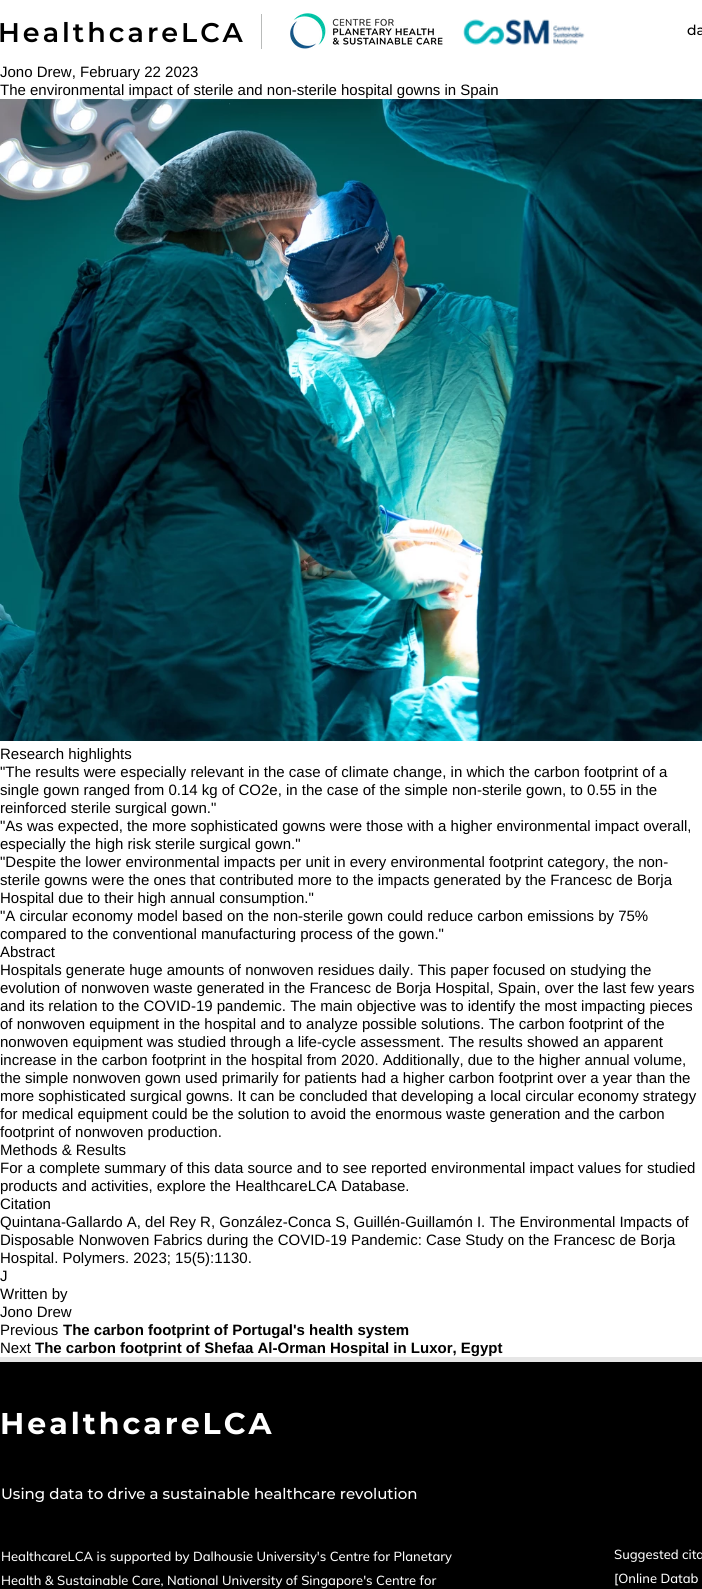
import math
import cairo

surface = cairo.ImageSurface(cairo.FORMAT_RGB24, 702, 1589)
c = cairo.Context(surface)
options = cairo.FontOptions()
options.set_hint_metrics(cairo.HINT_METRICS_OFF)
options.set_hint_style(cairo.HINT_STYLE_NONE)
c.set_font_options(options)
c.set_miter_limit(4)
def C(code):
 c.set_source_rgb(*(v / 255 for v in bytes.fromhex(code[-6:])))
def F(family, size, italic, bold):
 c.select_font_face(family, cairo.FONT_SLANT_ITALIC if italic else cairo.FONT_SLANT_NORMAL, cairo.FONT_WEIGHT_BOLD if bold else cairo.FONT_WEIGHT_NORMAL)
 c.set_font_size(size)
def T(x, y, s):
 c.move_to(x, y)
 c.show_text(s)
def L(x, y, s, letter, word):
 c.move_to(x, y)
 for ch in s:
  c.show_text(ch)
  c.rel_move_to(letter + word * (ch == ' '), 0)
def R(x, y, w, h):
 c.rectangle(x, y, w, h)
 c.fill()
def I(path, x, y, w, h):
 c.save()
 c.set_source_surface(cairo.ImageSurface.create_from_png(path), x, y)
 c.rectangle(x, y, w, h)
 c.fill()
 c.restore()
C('ffffff')
c.paint()
F('Montserrat SemiBold',27,0,0)
C('000000')
L(-2,42,'HealthcareLCA',3,0)
C('b9bbba')
R(261,14,1,35)
I('1.png',290,13,153,36)
I('2.png',463,19,122,26)
F('Montserrat Medium',14,0,0)
C('000000')
T(687,35,'da')
F('Liberation Sans',15,0,0)
T(0,77,'Jono Drew, February 22 2023')
T(0,95,'The environmental impact of sterile and non-sterile hospital gowns in Spain')
I('3.png',0,99,702,642)
T(0,759,'Research highlights')
T(0,777,'"The results were especially relevant in the case of climate change, in which the carbon footprint of a')
T(0,795,'single gown ranged from 0.14 kg of CO2e, in the case of the simple non-sterile gown, to 0.55 in the')
T(0,813,'reinforced sterile surgical gown."')
T(0,831,'"As was expected, the more sophisticated gowns were those with a higher environmental impact overall,')
T(0,849,'especially the high risk sterile surgical gown."')
T(0,867,'"Despite the lower environmental impacts per unit in every environmental footprint category, the non-')
T(0,885,'sterile gowns were the ones that contributed more to the impacts generated by the Francesc de Borja')
T(0,903,'Hospital due to their high annual consumption."')
T(0,921,'"A circular economy model based on the non-sterile gown could reduce carbon emissions by 75%')
T(0,939,'compared to the conventional manufacturing process of the gown."')
T(0,957,'Abstract')
T(0,975,'Hospitals generate huge amounts of nonwoven residues daily. This paper focused on studying the')
T(0,993,'evolution of nonwoven waste generated in the Francesc de Borja Hospital, Spain, over the last few years')
T(0,1011,'and its relation to the COVID-19 pandemic. The main objective was to identify the most impacting pieces')
T(0,1029,'of nonwoven equipment in the hospital and to analyze possible solutions. The carbon footprint of the')
T(0,1047,'nonwoven equipment was studied through a life-cycle assessment. The results showed an apparent')
T(0,1065,'increase in the carbon footprint in the hospital from 2020. Additionally, due to the higher annual volume,')
T(0,1083,'the simple nonwoven gown used primarily for patients had a higher carbon footprint over a year than the')
T(0,1101,'more sophisticated surgical gowns. It can be concluded that developing a local circular economy strategy')
T(0,1119,'for medical equipment could be the solution to avoid the enormous waste generation and the carbon')
T(0,1137,'footprint of nonwoven production.')
T(0,1155,'Methods & Results')
T(0,1173,'For a complete summary of this data source and to see reported environmental impact values for studied')
T(0,1191,'products and activities, explore the HealthcareLCA Database.')
T(0,1209,'Citation')
T(0,1227,'Quintana-Gallardo A, del Rey R, González-Conca S, Guillén-Guillamón I. The Environmental Impacts of')
T(0,1245,'Disposable Nonwoven Fabrics during the COVID-19 Pandemic: Case Study on the Francesc de Borja')
T(0,1263,'Hospital. Polymers. 2023; 15(5):1130.')
T(0,1281,'J')
T(0,1299,'Written by')
T(0,1317,'Jono Drew')
T(0,1335,'Previous')
F('Liberation Sans',15,0,1)
T(63,1335,'The carbon footprint of Portugal\'s health system')
F('Liberation Sans',15,0,0)
T(0,1353,'Next')
F('Liberation Sans',15,0,1)
T(35,1353,'The carbon footprint of Shefaa Al-Orman Hospital in Luxor, Egypt')
R(0,1362,702,227)
C('e6e6e6')
R(0,1357,702,5)
F('Montserrat',30,0,1)
C('ffffff')
L(0,1434,'HealthcareLCA',3,0)
F('Montserrat Medium',15,0,0)
T(1,1499,'Using data to drive a sustainable healthcare revolution')
F('Muli Medium',13,0,0)
T(1,1561,'HealthcareLCA is supported by Dalhousie University\'s Centre for Planetary')
T(1,1585,'Health & Sustainable Care, National University of Singapore\'s Centre for')
T(614,1559,'Suggested cita')
T(614,1583,'[Online Datab')
surface.write_to_png('o.png')
